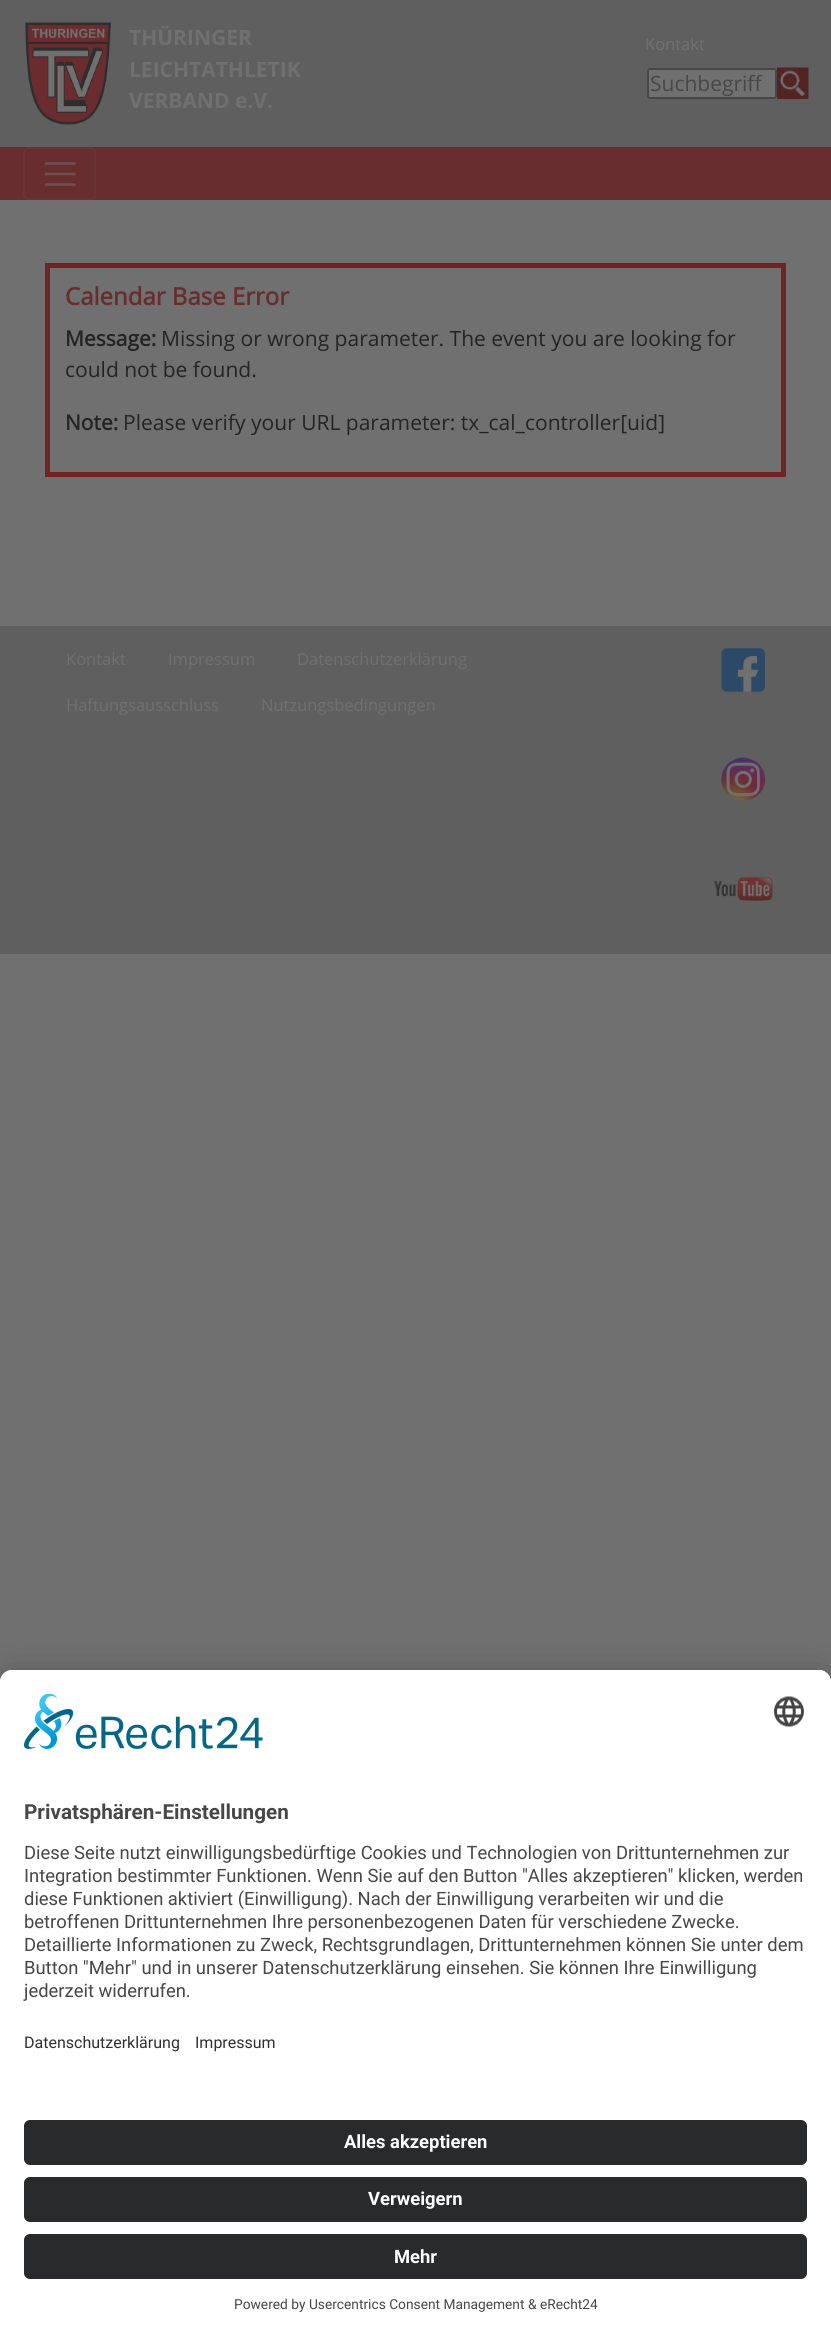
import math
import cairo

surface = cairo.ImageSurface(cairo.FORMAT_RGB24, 831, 2337)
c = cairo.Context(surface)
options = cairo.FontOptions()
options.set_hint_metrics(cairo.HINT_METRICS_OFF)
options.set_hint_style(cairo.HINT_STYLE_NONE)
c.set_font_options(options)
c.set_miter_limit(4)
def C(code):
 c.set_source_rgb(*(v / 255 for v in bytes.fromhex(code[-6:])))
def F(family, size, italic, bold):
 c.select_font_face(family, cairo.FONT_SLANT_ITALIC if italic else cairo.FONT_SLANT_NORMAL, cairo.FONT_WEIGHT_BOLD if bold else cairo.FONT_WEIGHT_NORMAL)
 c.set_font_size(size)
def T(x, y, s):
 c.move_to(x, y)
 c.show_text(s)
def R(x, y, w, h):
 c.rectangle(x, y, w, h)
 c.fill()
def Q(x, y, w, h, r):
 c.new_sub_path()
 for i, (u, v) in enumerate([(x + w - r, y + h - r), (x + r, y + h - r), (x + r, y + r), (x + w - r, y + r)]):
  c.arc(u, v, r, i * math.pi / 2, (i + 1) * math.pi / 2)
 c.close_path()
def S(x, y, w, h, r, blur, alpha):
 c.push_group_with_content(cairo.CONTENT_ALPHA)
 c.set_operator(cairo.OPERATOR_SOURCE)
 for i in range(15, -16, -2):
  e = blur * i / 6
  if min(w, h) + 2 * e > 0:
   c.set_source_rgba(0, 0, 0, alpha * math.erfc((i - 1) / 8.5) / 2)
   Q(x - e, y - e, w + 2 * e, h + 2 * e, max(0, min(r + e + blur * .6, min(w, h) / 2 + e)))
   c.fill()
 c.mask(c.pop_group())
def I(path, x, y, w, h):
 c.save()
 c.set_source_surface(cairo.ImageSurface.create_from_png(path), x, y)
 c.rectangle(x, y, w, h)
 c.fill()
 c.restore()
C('707070')
c.paint()
C('5f5f5f')
R(0,0,831,147)
I('1.png',25,22,86,103)
F('Open Sans',21,0,1)
C('707070')
T(129,45,'THÜRINGER')
T(129,77,'LEICHTATHLETIK')
T(129,108,'VERBAND e.V.')
F('Open Sans',16.5,0,0)
T(645,50,'Kontakt')
Q(648,69,128,29,2)
c.fill_preserve()
C('474747')
c.stroke()
F('Open Sans',21,0,0)
T(650,91,'Suchbegriff')
I('2.png',777,67,32,32)
C('682d2f')
R(0,147,831,53)
Q(24,148,71,51,5)
C('693435')
c.stroke()
c.new_path()
c.move_to(46,163.5)
c.line_to(74.5,163.5)
c.move_to(46,174)
c.line_to(74.5,174)
c.move_to(46,184.5)
c.line_to(74.5,184.5)
C('6c4f50')
c.set_line_width(2.6)
c.set_line_cap(cairo.LINE_CAP_ROUND)
c.stroke()
c.rectangle(47.5,265.5,736,209)
C('702424')
c.set_line_width(5)
c.set_line_cap(cairo.LINE_CAP_BUTT)
c.stroke()
F('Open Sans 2',24,0,1)
C('682d2f')
T(65,305,'Calendar Base Error')
F('Open Sans 2',21,0,1)
C('242424')
T(65,346,'Message:')
F('Open Sans',21,0,0)
T(161,346,'Missing or wrong parameter. The event you are looking for')
T(65,377,'could not be found.')
F('Open Sans 2',21,0,1)
T(65,430,'Note:')
F('Open Sans',21,0,0)
T(123,430,'Please verify your URL parameter: tx_cal_controller[uid]')
C('5f5f5f')
R(0,626,831,328)
F('Open Sans',16.5,0,0)
C('707070')
T(66,665,'Kontakt')
T(168,665,'Impressum')
T(297,665,'Datenschutzerklärung')
T(66,711,'Haftungsausschluss')
T(261,711,'Nutzungsbedingungen')
I('3.png',721,647,45,45)
I('4.png',720,757,46,45)
I('5.png',714,876,59,25)
C('000000')
S(0,1700,831,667,12,21,.3)
S(0,1677,831,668,12,19.5,.22)
C('ffffff')
c.new_path()
c.move_to(12,1670)
c.line_to(819,1670)
c.curve_to(825.5,1670,831,1675.5,831,1682)
c.line_to(831,2337)
c.line_to(0,2337)
c.line_to(0,1682)
c.curve_to(0,1675.5,5.5,1670,12,1670)
c.close_path()
c.fill()
c.new_path()
c.move_to(12,1670)
c.line_to(819,1670)
c.curve_to(825.5,1670,831,1675.5,831,1682)
c.line_to(831,2102)
c.line_to(0,2102)
c.line_to(0,1682)
c.curve_to(0,1675.5,5.5,1670,12,1670)
c.close_path()
c.fill()
I('6.png',24,1694,239,55)
I('7.png',774,1696,30,31)
F('Roboto',20.7,0,1)
C('474747')
T(24,1819,'Privatsphären-Einstellungen')
F('Roboto',18.4,0,0)
T(24,1859,'Diese Seite nutzt einwilligungsbedürftige Cookies und Technologien von Drittunternehmen zur')
T(24,1882,'Integration bestimmter Funktionen. Wenn Sie auf den Button "Alles akzeptieren" klicken, werden')
T(24,1905,'diese Funktionen aktiviert (Einwilligung). Nach der Einwilligung verarbeiten wir und die')
T(24,1928,'betroffenen Drittunternehmen Ihre personenbezogenen Daten für verschiedene Zwecke.')
T(24,1951,'Detaillierte Informationen zu Zweck, Rechtsgrundlagen, Drittunternehmen können Sie unter dem')
T(24,1974,'Button "Mehr" und in unserer Datenschutzerklärung einsehen. Sie können Ihre Einwilligung')
T(24,1997,'jederzeit widerrufen.')
F('Roboto',16,0,0)
C('303030')
T(24,2048,'Datenschutzerklärung')
T(195,2048,'Impressum')
C('292a2b')
Q(24,2120,783,45,6)
c.fill()
F('Roboto',18.4,0,1)
C('ffffff')
T(344,2148,'Alles akzeptieren')
C('292a2b')
Q(24,2177,783,45,6)
c.fill()
C('ffffff')
T(368,2205,'Verweigern')
C('292a2b')
Q(24,2234,783,45,6)
c.fill()
C('ffffff')
T(394,2263,'Mehr')
F('Roboto',13.75,0,0)
C('474747')
T(234,2309,'Powered by Usercentrics Consent Management')
T(528,2309,'& eRecht24')
surface.write_to_png('o.png')
